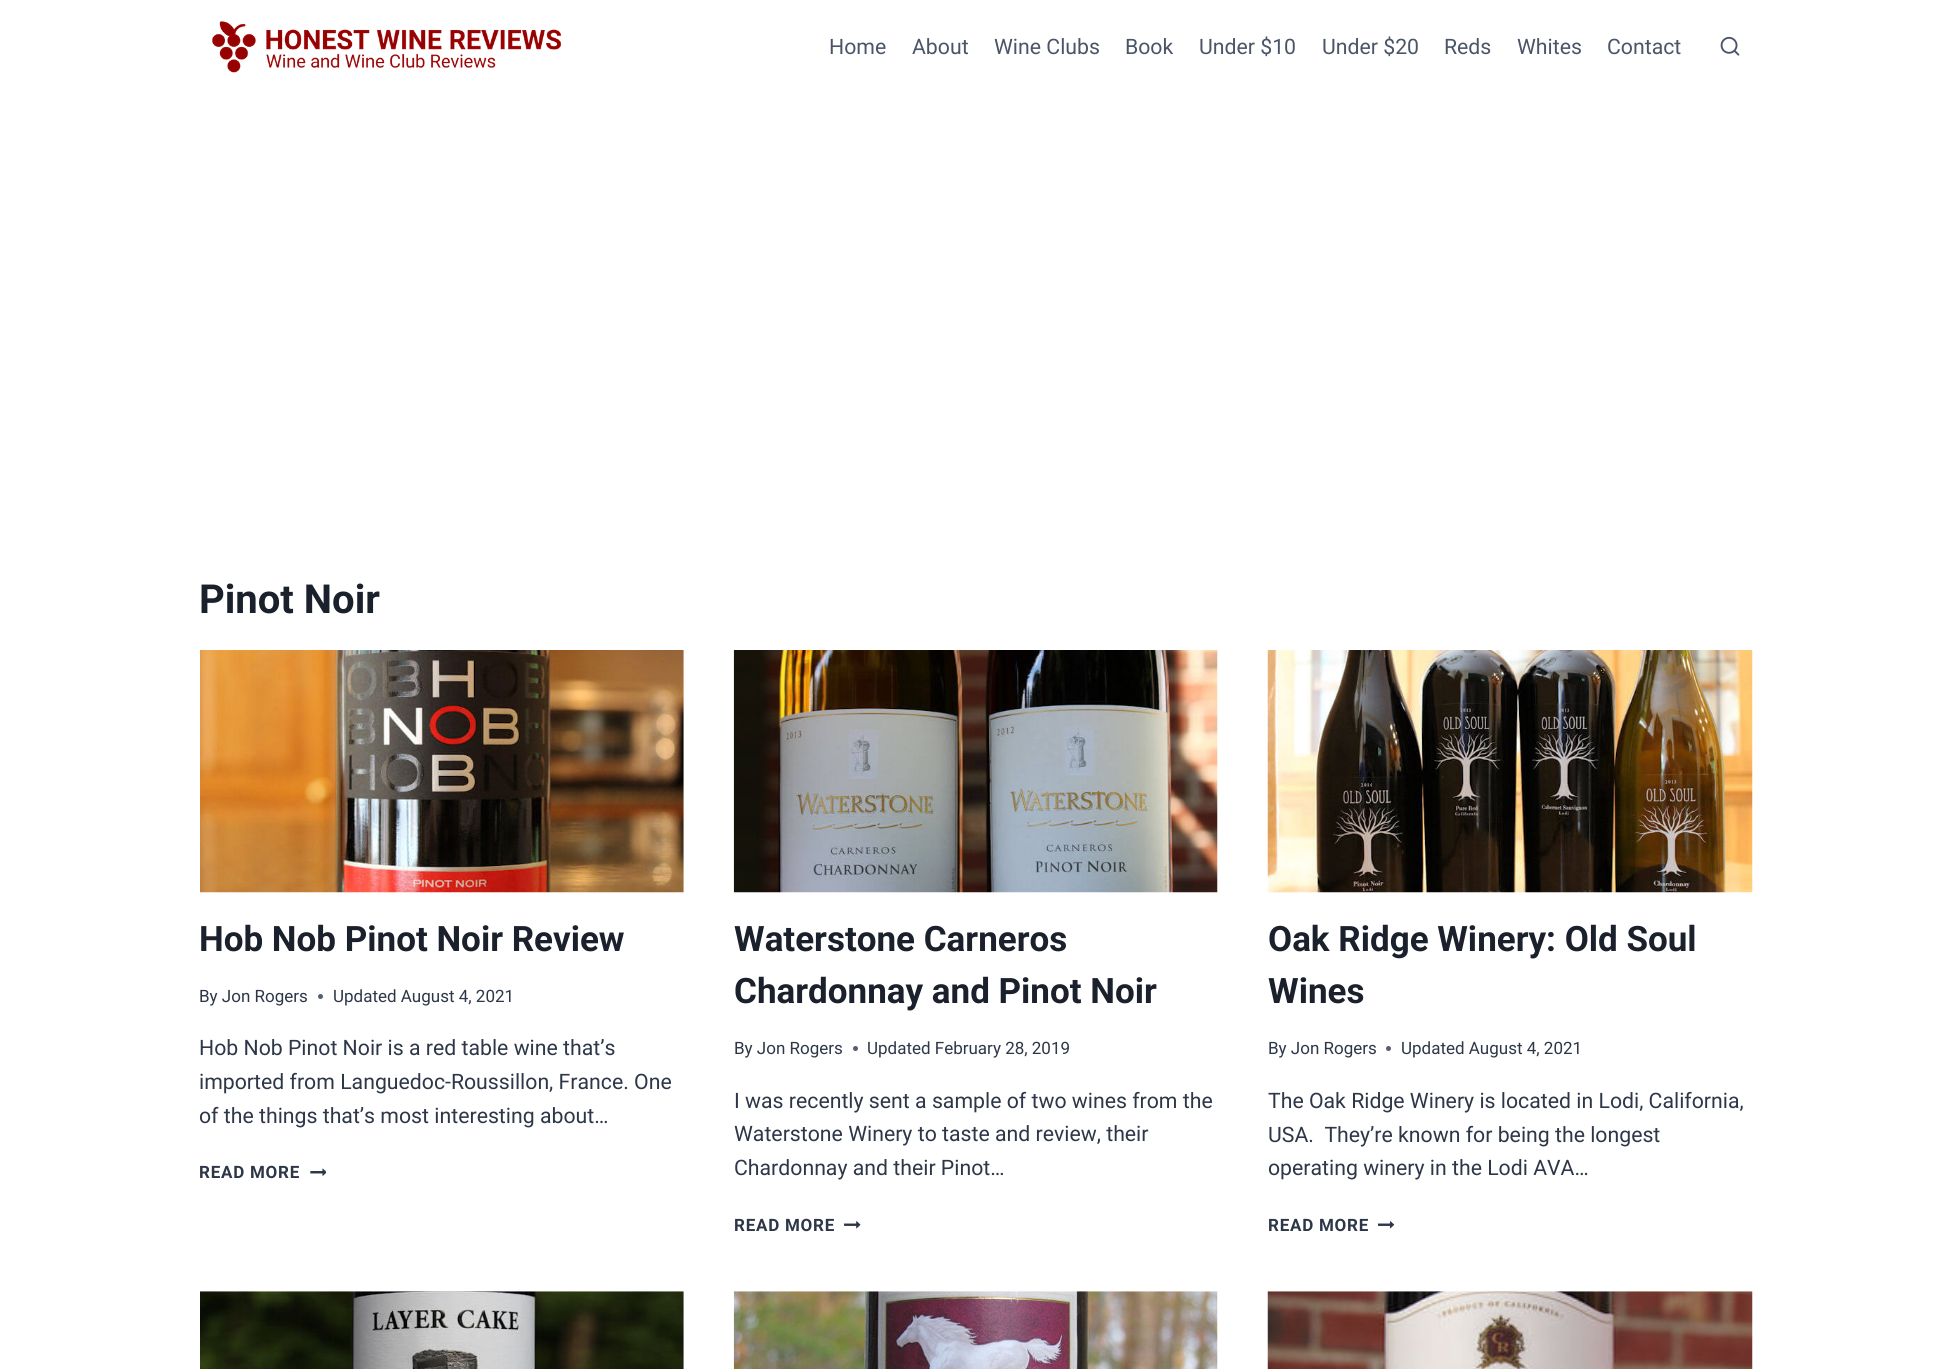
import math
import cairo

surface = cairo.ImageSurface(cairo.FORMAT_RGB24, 1951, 1369)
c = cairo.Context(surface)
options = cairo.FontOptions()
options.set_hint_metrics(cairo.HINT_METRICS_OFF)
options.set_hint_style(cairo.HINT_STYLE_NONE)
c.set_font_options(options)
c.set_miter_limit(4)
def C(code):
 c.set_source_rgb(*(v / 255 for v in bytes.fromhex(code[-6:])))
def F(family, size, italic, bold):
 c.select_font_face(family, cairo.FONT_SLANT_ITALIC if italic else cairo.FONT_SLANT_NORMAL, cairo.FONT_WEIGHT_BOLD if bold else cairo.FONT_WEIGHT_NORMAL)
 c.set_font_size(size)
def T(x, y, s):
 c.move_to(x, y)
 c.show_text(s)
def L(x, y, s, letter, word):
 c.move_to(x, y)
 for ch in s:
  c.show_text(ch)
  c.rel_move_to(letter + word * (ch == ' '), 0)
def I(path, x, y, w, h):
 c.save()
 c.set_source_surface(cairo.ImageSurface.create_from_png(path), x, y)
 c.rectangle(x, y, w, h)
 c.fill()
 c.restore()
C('ffffff')
c.paint()
I('1.png',212,21,350,52)
F('Roboto',21.25,0,0)
C('4a5568')
T(829,54,'Home')
T(912,54,'About')
T(994,54,'Wine Clubs')
T(1125,54,'Book')
T(1199,54,'Under $10')
T(1322,54,'Under $20')
T(1444,54,'Reds')
T(1517,54,'Whites')
T(1607,54,'Contact')
I('2.png',1720,36,20,20)
F('Roboto',40,0,1)
C('1a202c')
T(199,613,'Pinot Noir')
I('3.png',200,650,484,243)
F('Roboto',35,0,1)
T(199,951,'Hob Nob Pinot Noir Review')
F('Roboto',17,0,0)
C('2d3748')
T(199,1002,'By Jon Rogers')
C('575f6d')
c.new_path()
c.arc(320.5,996.5,2.5,0,2 * math.pi)
c.fill()
C('2d3748')
T(333,1002,'Updated August 4, 2021')
F('Roboto',21.25,0,0)
T(199,1055,'Hob Nob Pinot Noir is a red table wine that’s')
T(199,1089,'imported from Languedoc-Roussillon, France. One')
T(199,1123,'of the things that’s most interesting about…')
F('Roboto',17,0,1)
L(199,1178,'READ MORE',.75,0)
I('4.png',310,1168,16,8)
I('5.png',733,650,485,243)
F('Roboto',35,0,1)
C('1a202c')
T(734,951,'Waterstone Carneros')
T(734,1003,'Chardonnay and Pinot Noir')
F('Roboto',17,0,0)
C('2d3748')
T(734,1054,'By Jon Rogers')
C('575f6d')
c.new_path()
c.arc(855.5,1048.5,2.5,0,2 * math.pi)
c.fill()
C('2d3748')
T(867,1054,'Updated February 28, 2019')
F('Roboto',21.25,0,0)
T(734,1108,'I was recently sent a sample of two wines from the')
T(734,1141,'Waterstone Winery to taste and review, their')
T(734,1175,'Chardonnay and their Pinot…')
F('Roboto',17,0,1)
L(734,1231,'READ MORE',.75,0)
I('6.png',844,1221,17,8)
I('7.png',1267,650,486,243)
F('Roboto',35,0,1)
C('1a202c')
T(1268,951,'Oak Ridge Winery: Old Soul')
T(1268,1003,'Wines')
F('Roboto',17,0,0)
C('2d3748')
T(1268,1054,'By Jon Rogers')
C('575f6d')
c.new_path()
c.arc(1388.5,1048.5,2.5,0,2 * math.pi)
c.fill()
C('2d3748')
T(1401,1054,'Updated August 4, 2021')
F('Roboto',21.25,0,0)
T(1268,1108,'The Oak Ridge Winery is located in Lodi, California,')
T(1268,1142,'USA.  They’re known for being the longest')
T(1268,1175,'operating winery in the Lodi AVA…')
F('Roboto',17,0,1)
L(1268,1231,'READ MORE',.75,0)
I('8.png',1378,1221,17,8)
I('9.png',200,1291,484,78)
I('10.png',733,1291,485,78)
I('11.png',1267,1291,486,78)
surface.write_to_png('o.png')
